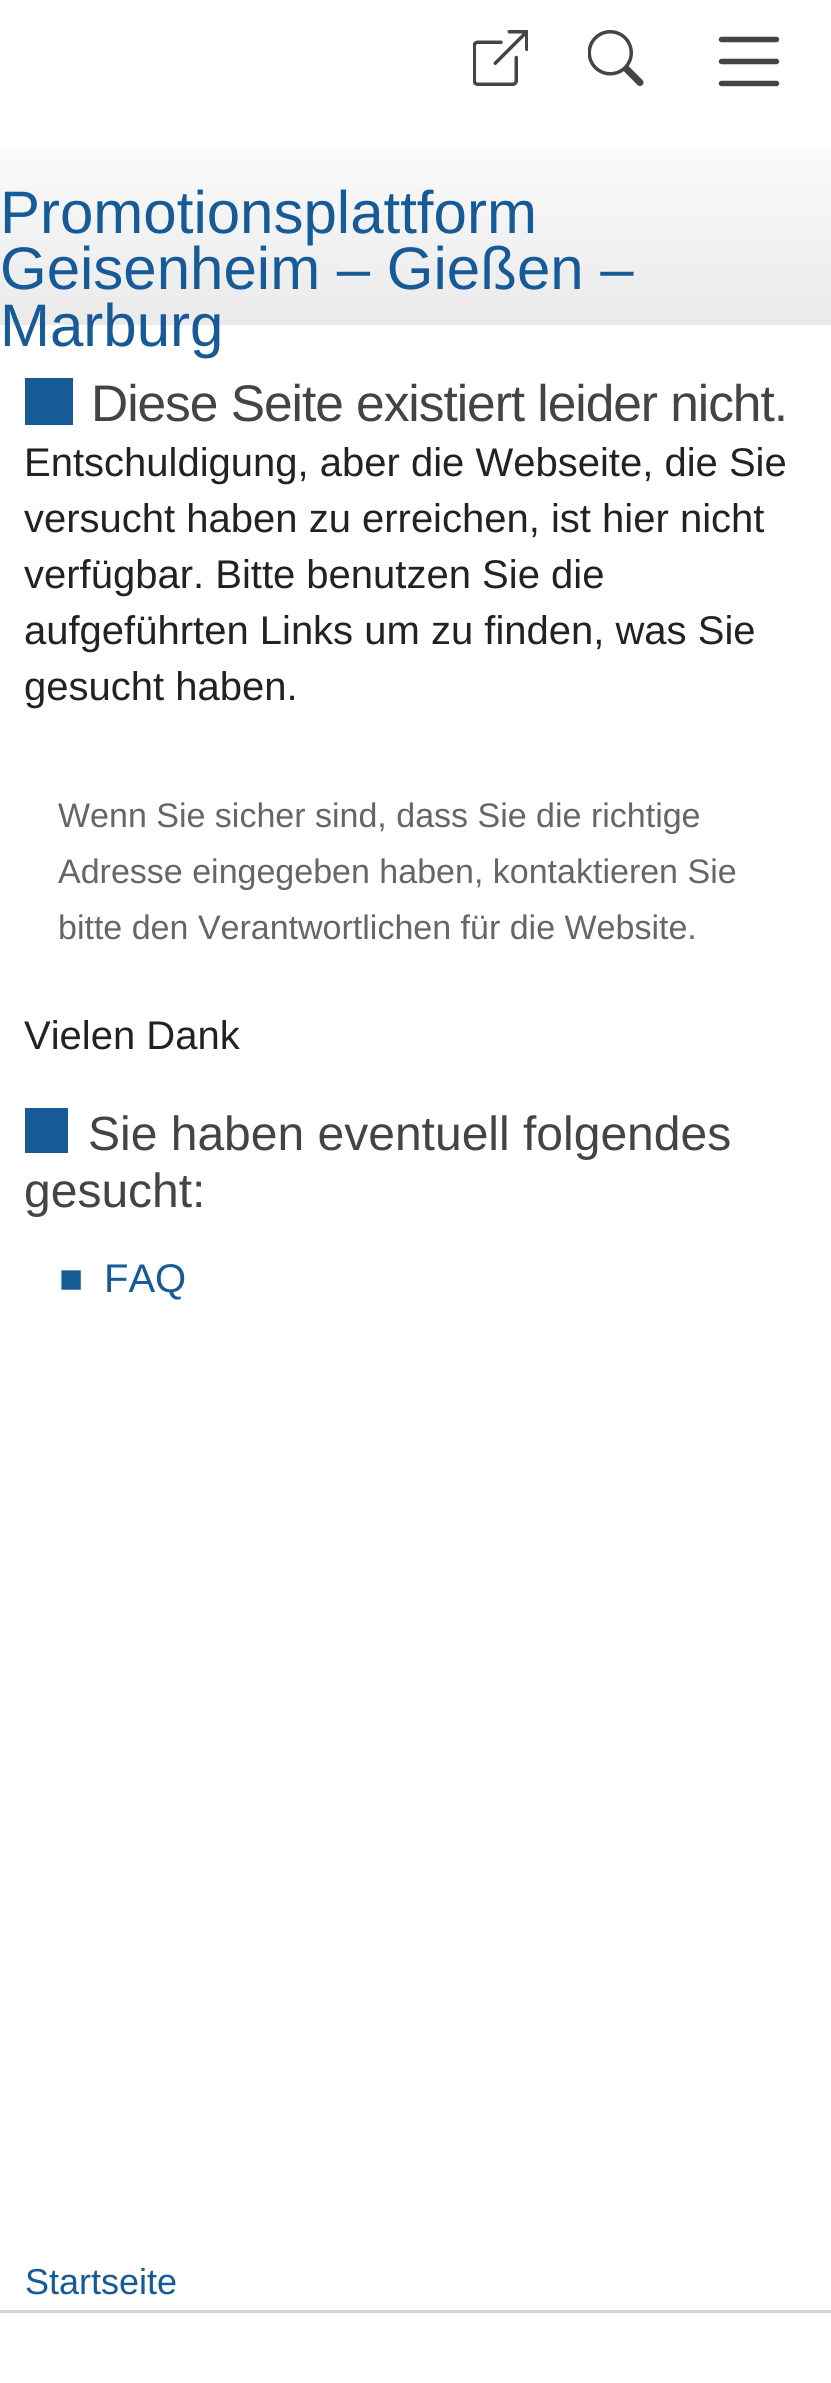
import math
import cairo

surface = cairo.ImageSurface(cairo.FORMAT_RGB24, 831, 2383)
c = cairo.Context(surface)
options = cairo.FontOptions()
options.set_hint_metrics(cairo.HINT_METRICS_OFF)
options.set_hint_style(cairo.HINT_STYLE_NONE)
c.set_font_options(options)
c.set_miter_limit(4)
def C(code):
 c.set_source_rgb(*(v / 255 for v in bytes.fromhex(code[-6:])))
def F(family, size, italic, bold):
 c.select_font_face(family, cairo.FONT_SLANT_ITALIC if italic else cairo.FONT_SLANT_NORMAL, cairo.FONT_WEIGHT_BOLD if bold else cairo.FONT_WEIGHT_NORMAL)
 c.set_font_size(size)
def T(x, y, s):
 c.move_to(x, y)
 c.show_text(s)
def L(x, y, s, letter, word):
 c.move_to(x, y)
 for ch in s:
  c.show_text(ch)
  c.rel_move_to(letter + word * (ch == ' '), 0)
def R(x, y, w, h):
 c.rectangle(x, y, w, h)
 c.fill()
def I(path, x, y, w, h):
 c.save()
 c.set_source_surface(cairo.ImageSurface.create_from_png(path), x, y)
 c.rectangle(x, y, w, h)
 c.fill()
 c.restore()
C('ffffff')
c.paint()
I('1.png',473,30,55,56)
I('2.png',588,30,56,56)
I('3.png',718,36,62,51)
gradient = cairo.LinearGradient(416,150,416,325)
gradient.add_color_stop_rgba(0,0.98,0.98,0.98,1)
gradient.add_color_stop_rgba(1,0.918,0.918,0.918,1)
c.set_source(gradient)
R(0,150,831,175)
F('Liberation Sans',60,0,0)
C('165a97')
T(0,233,'Promotionsplattform')
T(0,289,'Geisenheim – Gießen –')
T(0,346,'Marburg')
R(25,378,48,47)
F('Liberation Sans',51.5,0,0)
C('444444')
L(91,421,'Diese Seite existiert leider nicht.',-1.05,0)
F('Liberation Sans',40,0,0)
C('222222')
T(24,476,'Entschuldigung, aber die Webseite, die Sie')
T(24,532,'versucht haben zu erreichen, ist hier nicht')
T(24,588,'verfügbar. Bitte benutzen Sie die')
T(24,644,'aufgeführten Links um zu finden, was Sie')
T(24,700,'gesucht haben.')
F('Liberation Sans',34,0,0)
C('666666')
T(58,827,'Wenn Sie sicher sind, dass Sie die richtige')
T(58,883,'Adresse eingegeben haben, kontaktieren Sie')
T(58,939,'bitte den Verantwortlichen für die Website.')
F('Liberation Sans',40,0,0)
C('222222')
T(24,1049,'Vielen Dank')
C('165a97')
R(25,1108,43,45)
F('Liberation Sans',48,0,0)
C('444444')
T(88,1150,'Sie haben eventuell folgendes')
T(24,1207,'gesucht:')
F('Liberation Sans',40,0,0)
C('165a97')
T(59,1292,'■')
T(104,1292,'FAQ')
C('d5d5d5')
R(0,2310,831,3)
F('Liberation Sans',36,0,0)
C('165a97')
T(25,2294,'Startseite')
surface.write_to_png('o.png')
